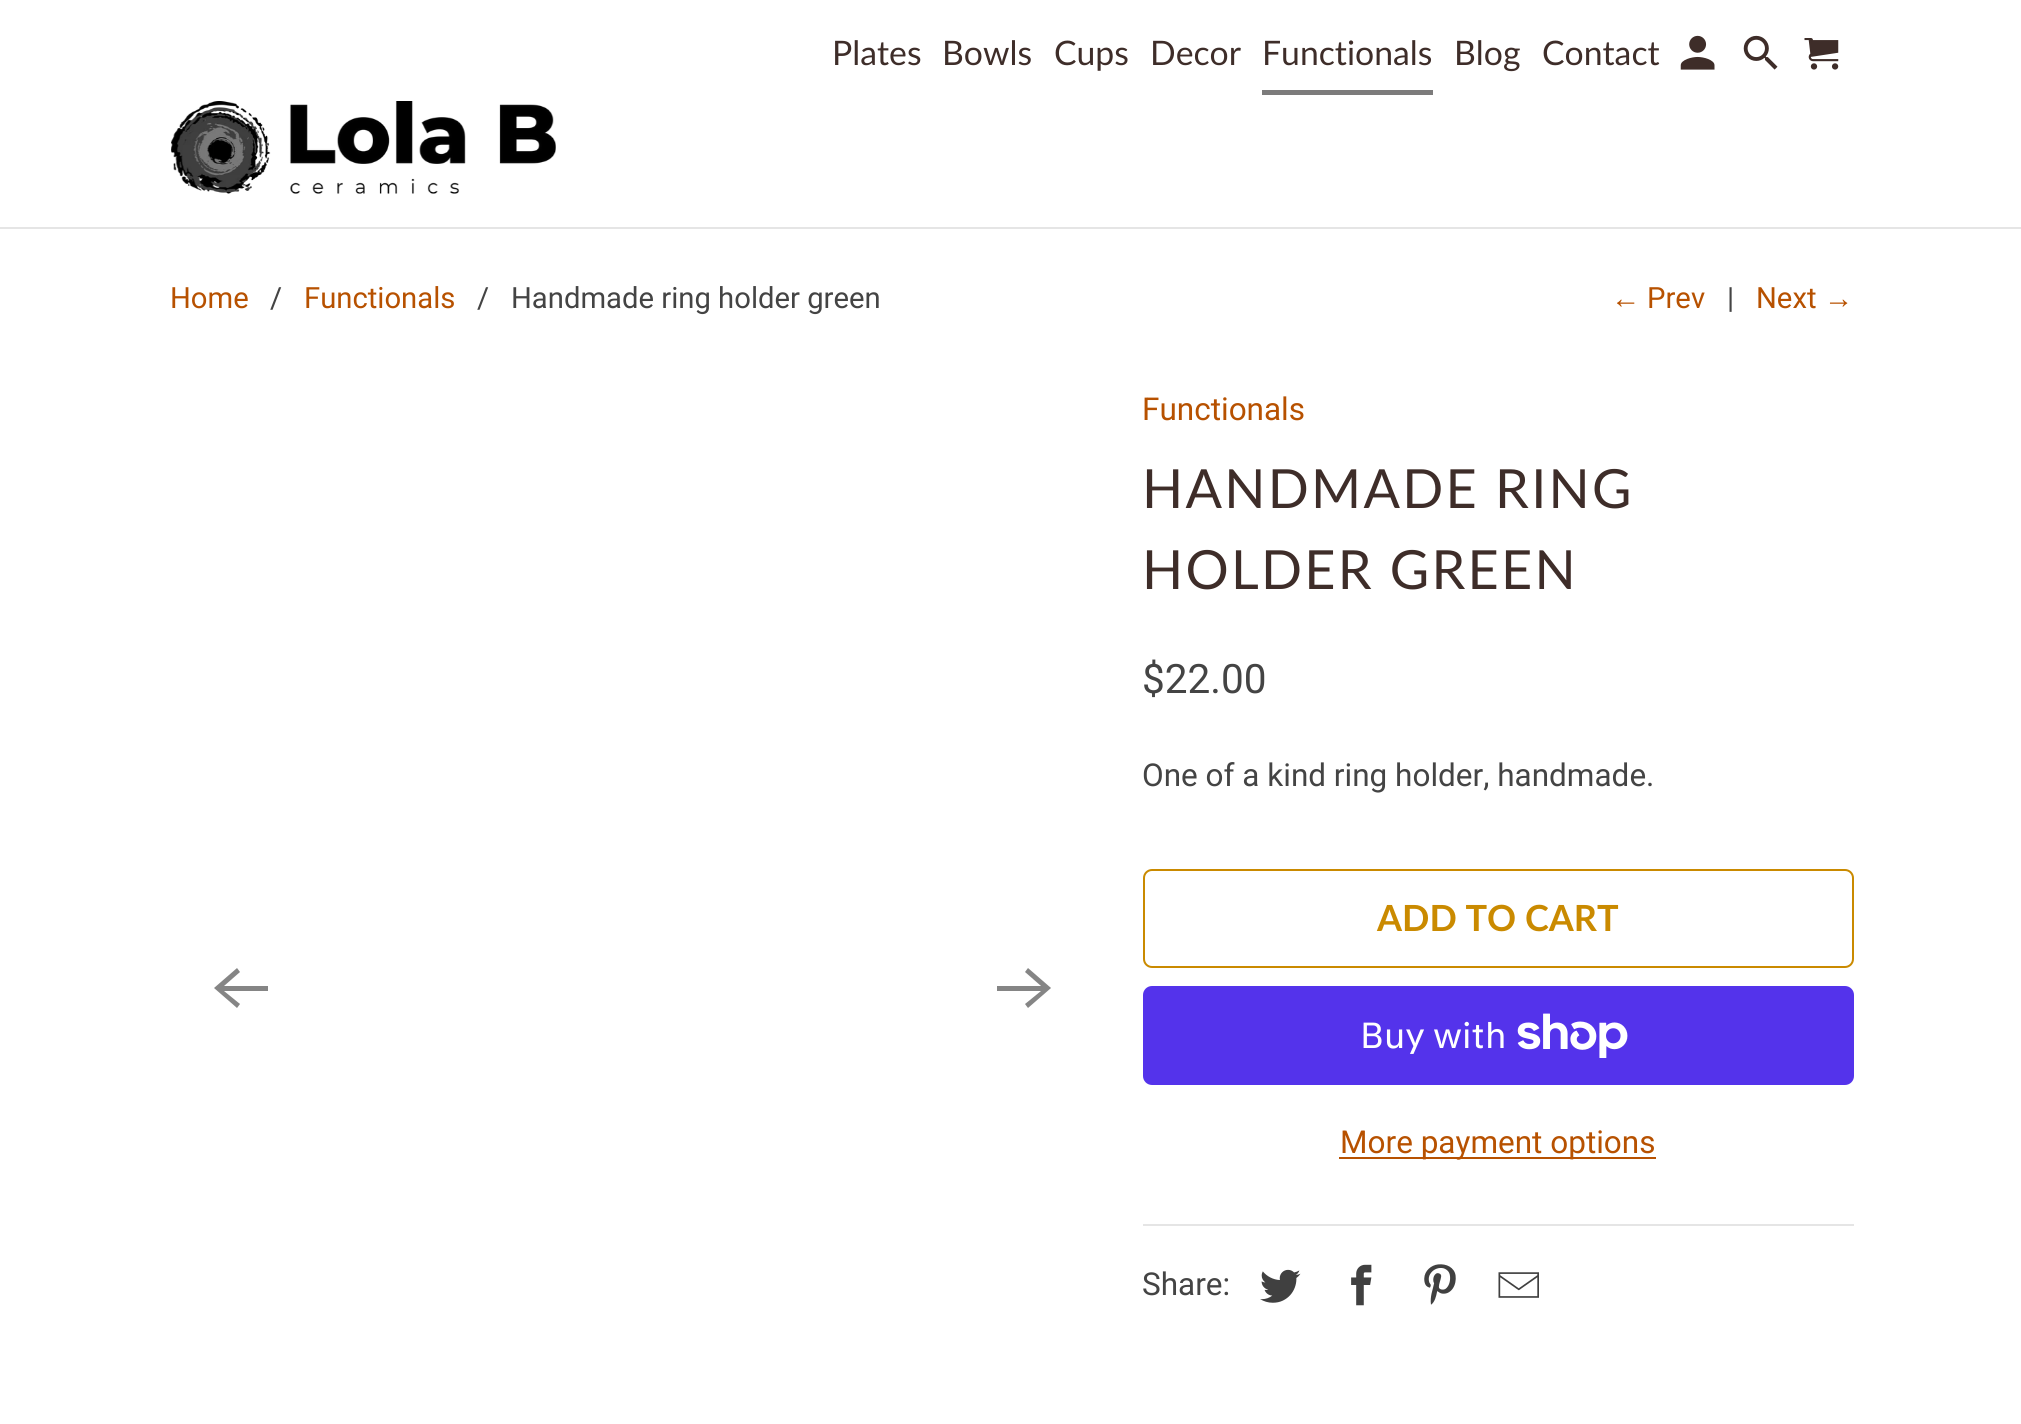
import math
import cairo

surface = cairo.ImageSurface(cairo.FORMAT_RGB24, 2021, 1424)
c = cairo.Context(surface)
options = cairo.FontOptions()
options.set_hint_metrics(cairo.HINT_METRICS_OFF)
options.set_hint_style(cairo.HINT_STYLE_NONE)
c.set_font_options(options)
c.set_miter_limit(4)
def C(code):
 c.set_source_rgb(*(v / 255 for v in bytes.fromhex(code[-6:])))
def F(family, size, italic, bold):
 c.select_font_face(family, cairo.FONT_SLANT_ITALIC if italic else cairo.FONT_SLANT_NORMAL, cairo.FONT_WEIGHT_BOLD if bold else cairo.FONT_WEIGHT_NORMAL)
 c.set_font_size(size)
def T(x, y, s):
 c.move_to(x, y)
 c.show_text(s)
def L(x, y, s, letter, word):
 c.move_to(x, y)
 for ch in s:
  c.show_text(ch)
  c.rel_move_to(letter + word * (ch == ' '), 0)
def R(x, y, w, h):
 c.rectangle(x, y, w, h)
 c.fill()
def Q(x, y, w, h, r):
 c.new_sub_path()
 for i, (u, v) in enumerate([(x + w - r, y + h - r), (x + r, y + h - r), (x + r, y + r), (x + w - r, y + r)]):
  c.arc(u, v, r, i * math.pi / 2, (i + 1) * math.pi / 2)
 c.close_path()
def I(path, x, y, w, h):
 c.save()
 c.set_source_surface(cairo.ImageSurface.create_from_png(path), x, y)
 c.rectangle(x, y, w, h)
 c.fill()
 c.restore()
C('ffffff')
c.paint()
C('e5e5e5')
R(0,227,2021,2)
F('Lato',33.75,0,0)
C('3e2d29')
T(832,65,'Plates')
T(942,65,'Bowls')
T(1054,65,'Cups')
T(1150,65,'Decor')
T(1262,65,'Functionals')
C('7c7b7b')
R(1262,90,171,5)
C('3e2d29')
T(1454,65,'Blog')
T(1542,65,'Contact')
I('1.png',1680,35,35,35)
I('2.png',1743,35,35,35)
I('3.png',1804,38,35,32)
I('4.png',171,101,385,93)
F('Roboto',29.25,0,0)
C('b75100')
T(170,308,'Home')
C('444444')
T(270,308,'/')
C('b75100')
T(304,308,'Functionals')
C('444444')
T(477,308,'/')
T(511,308,'Handmade ring holder green')
F('Liberation Sans',29.25,0,0)
C('b75100')
T(1611,308,'←')
F('Roboto',29.25,0,0)
T(1647,308,'Prev')
C('444444')
T(1727,308,'|')
C('b75100')
T(1756,308,'Next')
F('Liberation Sans',29.25,0,0)
T(1824,308,'→')
C('858585')
c.new_path()
c.move_to(268,986)
c.line_to(224,986)
c.line_to(240,972)
c.line_to(237,968)
c.line_to(214,988)
c.line_to(237,1008)
c.line_to(240,1004)
c.line_to(224,991)
c.line_to(268,991)
c.close_path()
c.fill()
c.new_path()
c.move_to(997,991)
c.line_to(1041,991)
c.line_to(1025,1004)
c.line_to(1028,1008)
c.line_to(1051,988)
c.line_to(1028,968)
c.line_to(1025,972)
c.line_to(1041,986)
c.line_to(997,986)
c.close_path()
c.fill()
F('Roboto',31.5,0,0)
C('b75100')
T(1142,420,'Functionals')
F('Lato',54,0,0)
C('3e2d29')
L(1142,508,'HANDMADE RING',2.25,0)
L(1142,589,'HOLDER GREEN',2.25,0)
F('Roboto',40.5,0,0)
C('444444')
T(1142,693,'$22.00')
F('Roboto',31.5,0,0)
T(1142,786,'One of a kind ring holder, handmade.')
Q(1144,870,709,97,8)
C('ca8a00')
c.stroke()
F('Lato',36,0,1)
T(1377,931,'ADD TO CART')
C('5433eb')
Q(1143,986,711,99,9)
c.fill()
F('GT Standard',36,0,0)
C('ffffff')
T(1360,1048,'Buy with')
I('5.png',1517,1013,111,45)
C('b75100')
R(1339,1157,317,2)
F('Roboto',31.5,0,0)
T(1340,1153,'More payment options')
C('e5e5e5')
R(1143,1224,711,2)
C('444444')
T(1142,1295,'Share:')
I('6.png',1260,1269,41,34)
I('7.png',1351,1264,21,42)
I('8.png',1424,1264,32,41)
I('9.png',1498,1272,41,26)
surface.write_to_png('o.png')
